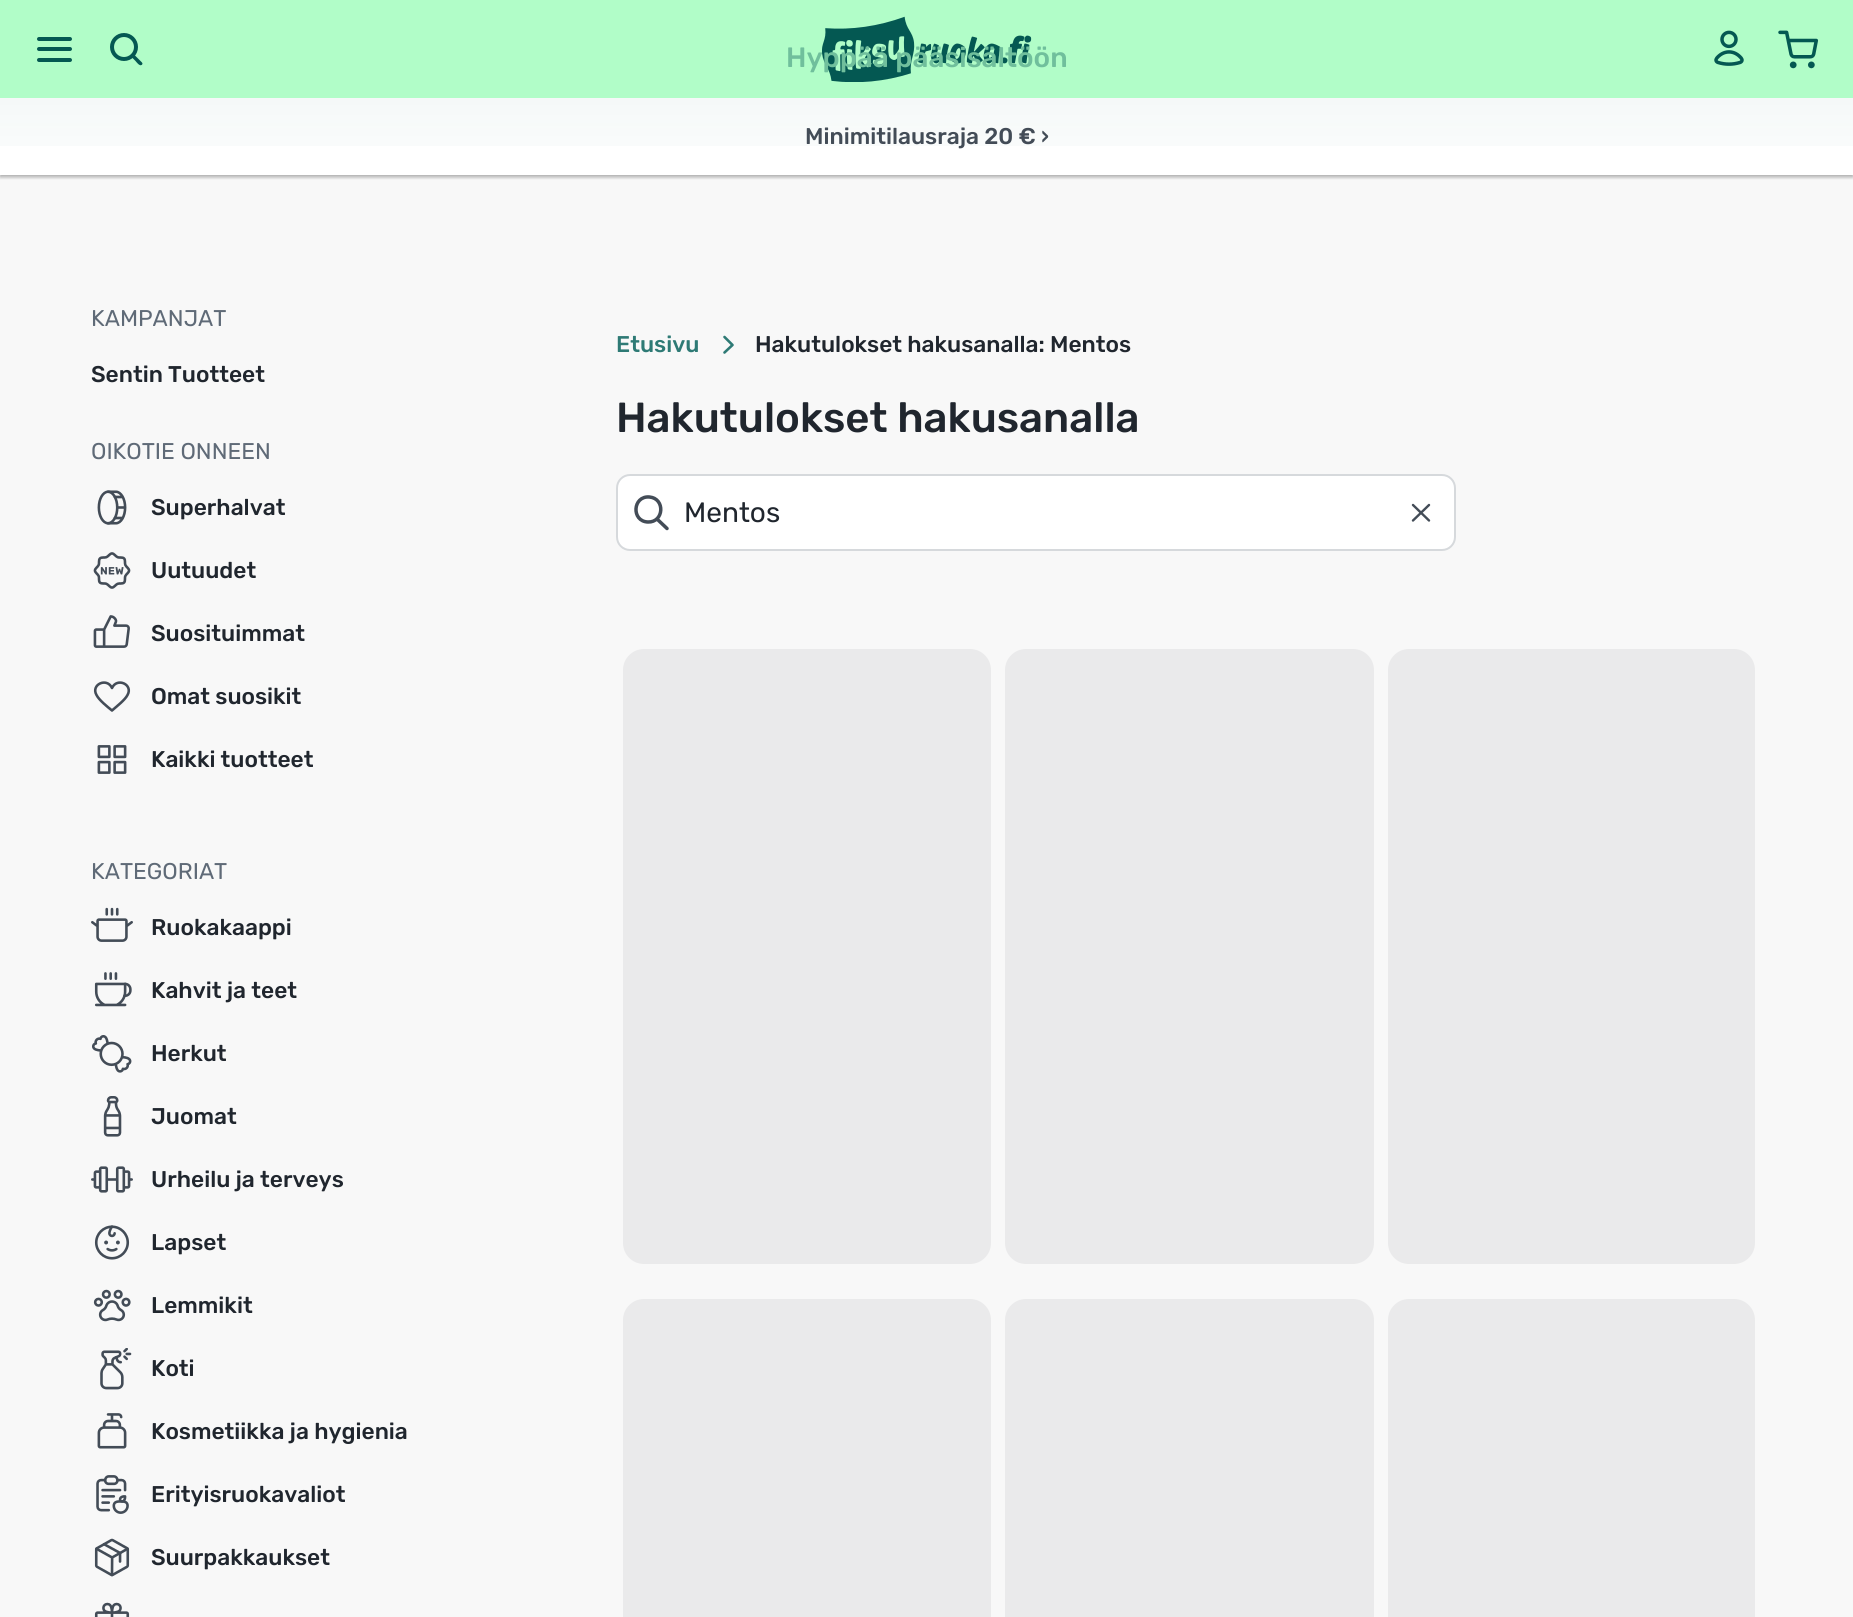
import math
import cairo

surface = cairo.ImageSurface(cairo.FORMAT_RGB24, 1853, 1617)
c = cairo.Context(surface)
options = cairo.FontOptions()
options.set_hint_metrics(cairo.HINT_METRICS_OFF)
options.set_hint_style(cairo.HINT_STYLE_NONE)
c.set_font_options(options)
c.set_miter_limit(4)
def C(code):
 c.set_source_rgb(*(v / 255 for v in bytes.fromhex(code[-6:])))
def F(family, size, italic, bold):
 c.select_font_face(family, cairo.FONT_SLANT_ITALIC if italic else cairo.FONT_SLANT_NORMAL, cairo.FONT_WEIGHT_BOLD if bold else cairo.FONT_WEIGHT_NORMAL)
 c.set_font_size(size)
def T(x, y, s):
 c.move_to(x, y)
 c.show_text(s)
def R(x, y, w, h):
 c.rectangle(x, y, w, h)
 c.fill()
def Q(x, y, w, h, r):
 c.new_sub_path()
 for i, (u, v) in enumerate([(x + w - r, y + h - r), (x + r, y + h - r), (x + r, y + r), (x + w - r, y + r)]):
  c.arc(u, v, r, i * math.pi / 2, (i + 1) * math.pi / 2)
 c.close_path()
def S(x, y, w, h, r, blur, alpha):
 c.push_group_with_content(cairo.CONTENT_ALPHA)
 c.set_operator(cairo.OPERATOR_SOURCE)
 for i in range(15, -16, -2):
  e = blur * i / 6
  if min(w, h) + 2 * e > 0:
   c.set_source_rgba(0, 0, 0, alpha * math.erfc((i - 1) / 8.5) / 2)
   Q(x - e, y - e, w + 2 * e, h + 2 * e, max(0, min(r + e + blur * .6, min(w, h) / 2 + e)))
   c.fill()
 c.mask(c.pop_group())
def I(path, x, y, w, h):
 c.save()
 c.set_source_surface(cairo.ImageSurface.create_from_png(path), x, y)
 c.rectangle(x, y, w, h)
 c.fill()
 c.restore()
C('f8f8f8')
c.paint()
C('ffffff')
R(0,98,1853,77)
c.save()
c.rectangle(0,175,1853,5)
c.clip()
C('000000')
S(0,100,1853,77,0,2,.24)
c.restore()
c.save()
c.rectangle(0,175,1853,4)
c.clip()
C('000000')
S(0,100,1853,77,0,2.5,.12)
c.restore()
C('b1fdc8')
R(0,0,1853,98)
C('045852')
Q(37,47,35,4,2)
c.fill()
Q(37,37,35,4,2)
c.fill()
Q(37,58,35,4,2)
c.fill()
c.new_path()
c.move_to(119.5,40)
c.line_to(142,62.5)
c.line_to(142.5,63.5)
c.curve_to(142.5,64,142,65,141.5,65)
c.curve_to(139.5,66.5,136,61.5,135.5,61)
c.line_to(116.5,42)
c.curve_to(116.5,41,117,39.5,118.5,39.5)
c.close_path()
c.fill()
C('b1fdc8')
c.arc(124,47,12,0,2 * math.pi)
c.fill_preserve()
C('045852')
c.set_line_width(4)
c.stroke()
I('1.png',822,16,210,66)
F('Rubik Medium',28,0,0)
C('70bf9c')
T(786,67,'Hyppää pääsisältöön')
I('2.png',1714,30,30,36)
I('3.png',1778,30,41,39)
gradient = cairo.LinearGradient(927,203,927,98)
gradient.add_color_stop_rgba(0,0.016,0.345,0.322,0)
gradient.add_color_stop_rgba(1,0.016,0.345,0.322,.04)
c.set_source(gradient)
R(0,98,1853,48)
F('Rubik Medium',22.75,0,0)
C('434c57')
T(805,144,'Minimitilausraja 20 € ›')
F('Rubik',22.75,0,0)
C('5f6a77')
T(91,326,'KAMPANJAT')
F('Rubik Medium',22.75,0,0)
C('20262e')
T(91,382,'Sentin Tuotteet')
F('Rubik',22.75,0,0)
C('5f6a77')
T(91,459,'OIKOTIE ONNEEN')
I('4.png',97,490,30,35)
F('Rubik Medium',22.75,0,0)
C('20262e')
T(151,515,'Superhalvat')
I('5.png',93,552,38,37)
T(151,578,'Uutuudet')
I('6.png',93,615,37,33)
T(151,641,'Suosituimmat')
c.new_path()
c.move_to(112,710.5)
c.curve_to(116.5,706.5,125,700,127.5,695)
c.curve_to(133.5,684.5,117,677,112,688)
c.curve_to(107,677,90.5,684.5,96.5,695)
c.curve_to(99,700,107,706.5,112,710.5)
C('434c57')
c.set_line_width(2.6)
c.set_line_cap(cairo.LINE_CAP_ROUND)
c.set_line_join(cairo.LINE_JOIN_ROUND)
c.stroke()
C('20262e')
T(151,704,'Omat suosikit')
I('7.png',97,745,30,29)
T(151,767,'Kaikki tuotteet')
F('Rubik',22.75,0,0)
C('5f6a77')
T(91,879,'KATEGORIAT')
I('8.png',91,907,42,35)
F('Rubik Medium',22.75,0,0)
C('20262e')
T(151,935,'Ruokakaappi')
I('9.png',94,972,38,35)
T(151,998,'Kahvit ja teet')
I('10.png',92,1035,40,38)
T(151,1061,'Herkut')
I('11.png',103,1096,19,41)
T(151,1124,'Juomat')
I('12.png',91,1166,42,27)
T(151,1187,'Urheilu ja terveys')
I('13.png',94,1225,36,35)
T(151,1250,'Lapset')
I('14.png',93,1289,38,33)
T(151,1313,'Lemmikit')
I('15.png',100,1348,32,42)
T(151,1376,'Koti')
I('16.png',97,1413,30,36)
T(151,1439,'Kosmetiikka ja hygienia')
I('17.png',96,1475,33,39)
T(151,1502,'Erityisruokavaliot')
I('18.png',94,1538,36,39)
T(151,1565,'Suurpakkaukset')
I('19.png',94,1602,36,15)
C('2e7a75')
T(616,352,'Etusivu')
c.new_path()
c.move_to(724.5,337)
c.line_to(732.5,345)
c.line_to(724.5,352.5)
c.stroke()
C('20262e')
T(755,352,'Hakutulokset hakusanalla: Mentos')
F('Rubik Medium',42,0,0)
T(616,432,'Hakutulokset hakusanalla')
C('ffffff')
Q(617,475,838,75,13)
c.fill_preserve()
C('d6d9dc')
c.set_line_width(2)
c.set_line_cap(cairo.LINE_CAP_BUTT)
c.set_line_join(cairo.LINE_JOIN_MITER)
c.stroke()
c.new_path()
c.move_to(648,522)
c.curve_to(664,522.5,665.5,498.5,649.5,497)
c.curve_to(632.5,495.5,631,521.5,648,522)
c.move_to(657,519)
c.line_to(667,528.5)
C('434c57')
c.set_line_width(3.5)
c.set_line_cap(cairo.LINE_CAP_ROUND)
c.set_line_join(cairo.LINE_JOIN_ROUND)
c.stroke()
F('Rubik',28,0,0)
C('20262e')
T(684,522,'Mentos')
c.new_path()
c.move_to(1429,505)
c.line_to(1413,520.5)
c.move_to(1429,520.5)
c.line_to(1413,505)
C('434c57')
c.set_line_width(2.4)
c.stroke()
C('eaeaeb')
Q(623,649,368,615,21)
c.fill()
Q(1005,649,369,615,21)
c.fill()
Q(1388,649,367,615,21)
c.fill()
Q(623,1299,368,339,21)
c.fill()
Q(1005,1299,369,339,21)
c.fill()
Q(1388,1299,367,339,21)
c.fill()
surface.write_to_png('o.png')
